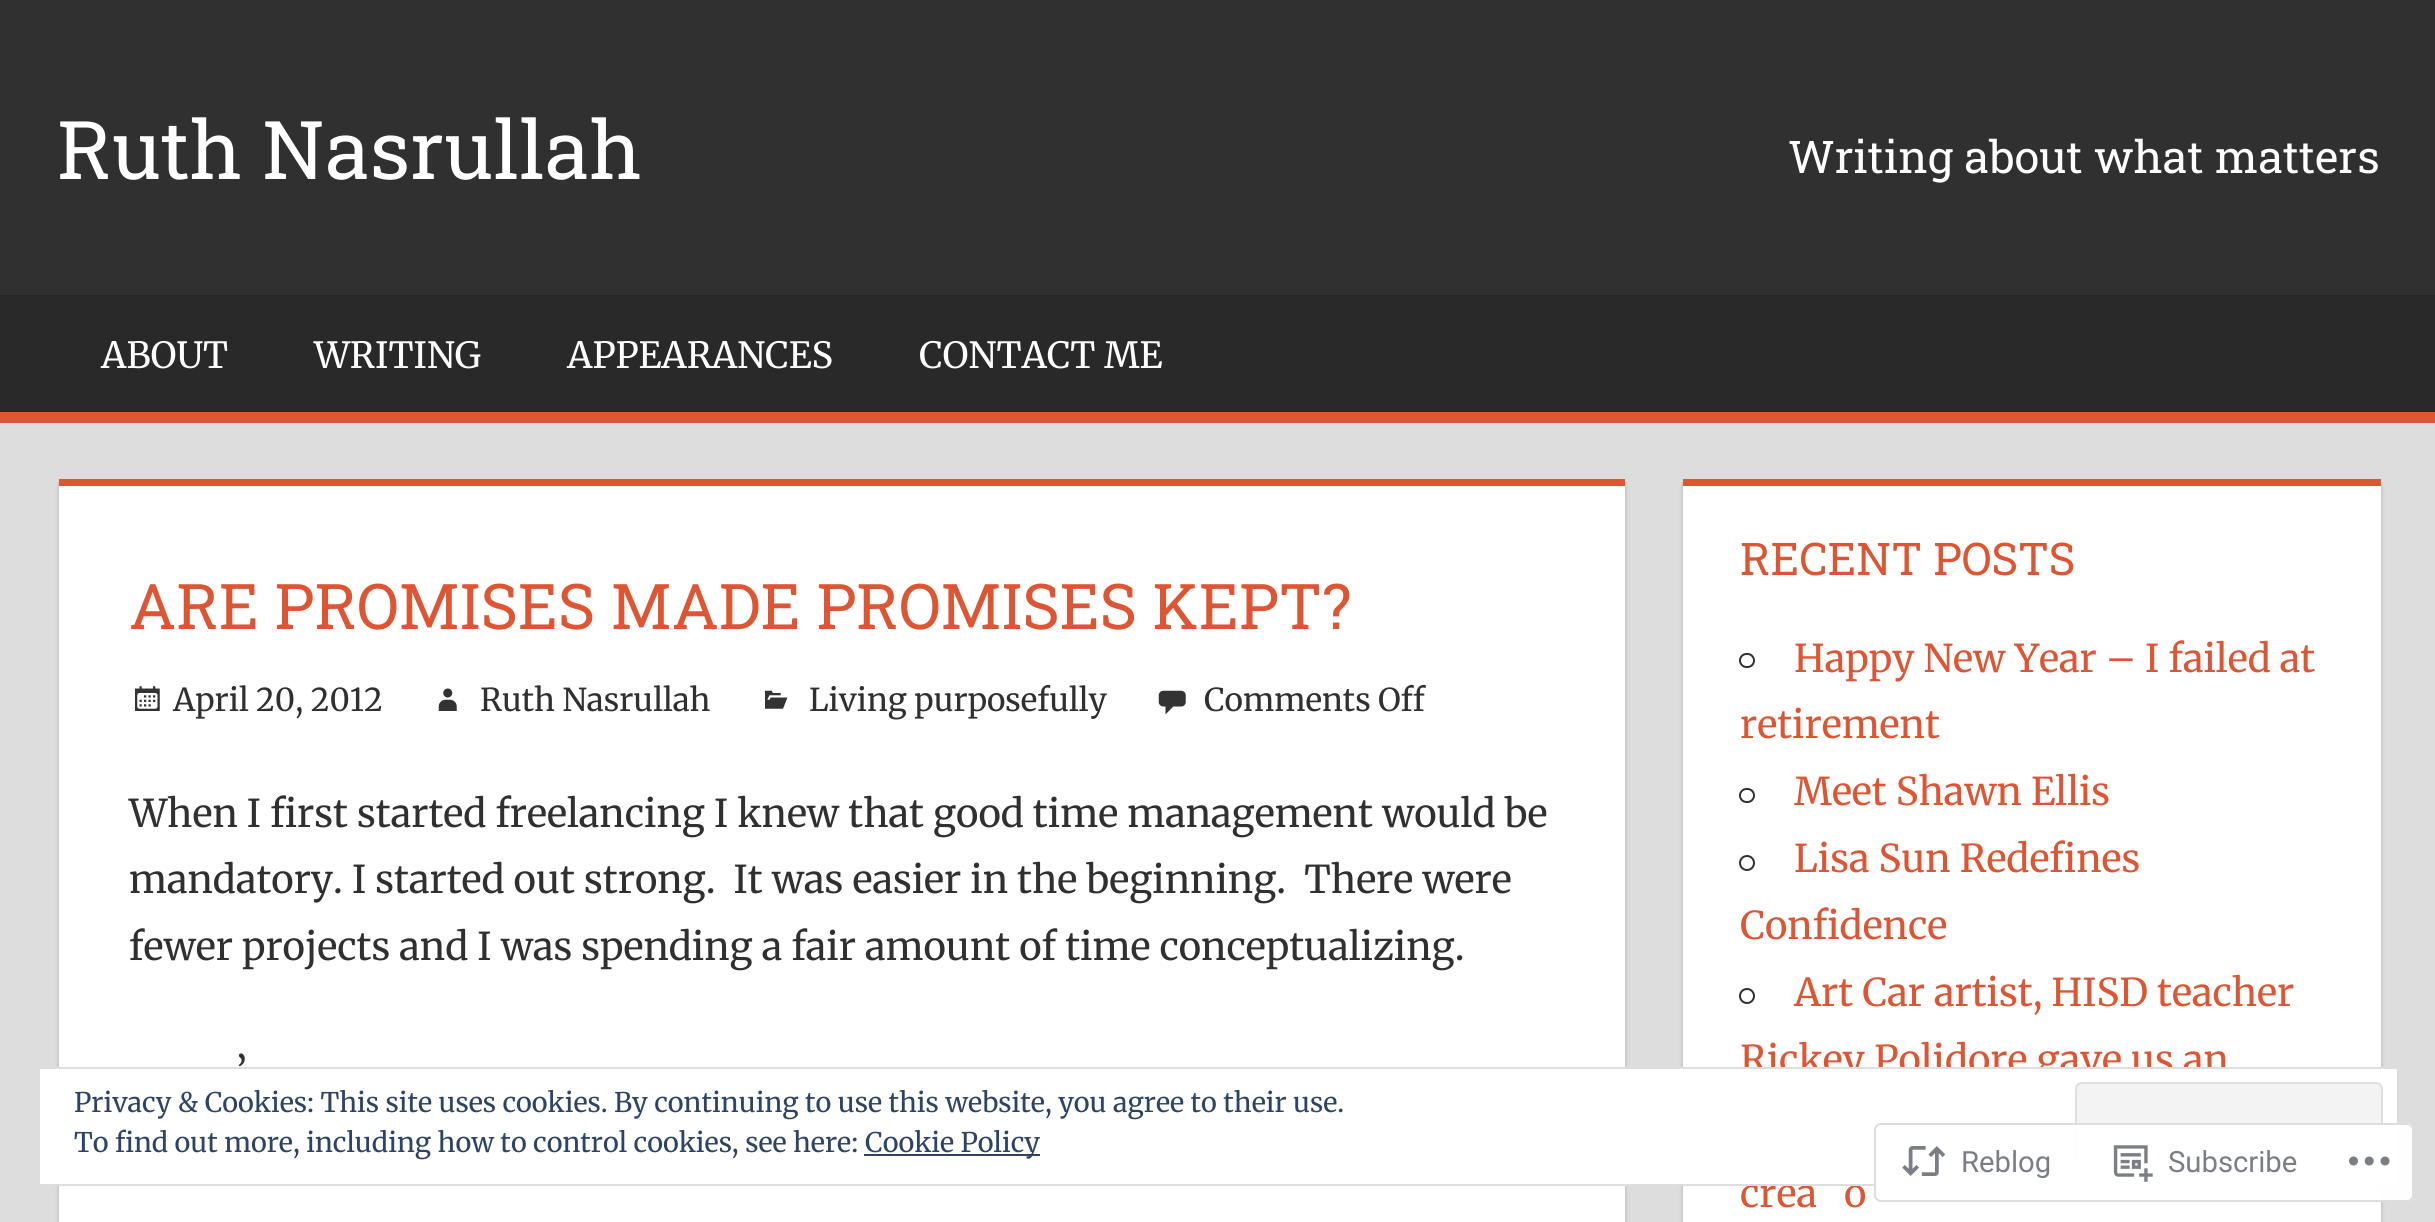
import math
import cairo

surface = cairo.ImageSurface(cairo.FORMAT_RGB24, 2435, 1222)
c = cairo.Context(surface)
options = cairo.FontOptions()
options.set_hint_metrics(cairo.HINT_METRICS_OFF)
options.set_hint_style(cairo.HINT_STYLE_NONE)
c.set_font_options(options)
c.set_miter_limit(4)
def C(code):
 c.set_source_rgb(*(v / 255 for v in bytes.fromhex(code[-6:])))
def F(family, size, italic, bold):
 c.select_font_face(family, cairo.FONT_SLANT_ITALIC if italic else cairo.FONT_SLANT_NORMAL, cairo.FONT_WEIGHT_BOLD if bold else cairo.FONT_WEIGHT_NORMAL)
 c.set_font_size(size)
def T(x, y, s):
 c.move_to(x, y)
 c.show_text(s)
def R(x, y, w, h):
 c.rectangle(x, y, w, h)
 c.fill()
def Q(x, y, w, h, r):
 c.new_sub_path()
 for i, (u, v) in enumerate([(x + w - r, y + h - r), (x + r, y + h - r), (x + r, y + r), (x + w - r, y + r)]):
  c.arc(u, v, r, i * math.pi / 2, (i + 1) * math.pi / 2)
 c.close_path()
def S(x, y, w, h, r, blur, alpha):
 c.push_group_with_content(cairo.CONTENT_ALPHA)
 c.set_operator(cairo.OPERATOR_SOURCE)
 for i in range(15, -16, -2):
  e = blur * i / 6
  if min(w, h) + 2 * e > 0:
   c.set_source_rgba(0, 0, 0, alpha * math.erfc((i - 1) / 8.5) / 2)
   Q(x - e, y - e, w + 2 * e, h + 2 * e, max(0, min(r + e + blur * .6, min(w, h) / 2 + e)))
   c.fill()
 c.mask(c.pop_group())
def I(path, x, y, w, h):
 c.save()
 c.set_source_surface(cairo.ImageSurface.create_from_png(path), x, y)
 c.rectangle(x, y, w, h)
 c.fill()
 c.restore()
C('dddddd')
c.paint()
C('303030')
R(0,0,2435,295)
F('Roboto Slab',81,0,0)
C('ffffff')
T(57,179,'Ruth Nasrullah')
F('Roboto Slab',45,0,0)
T(1788,173,'Writing about what matters')
C('292929')
R(0,297,2435,115)
C('272727')
R(0,295,2435,2)
C('dd5533')
R(0,412,2435,11)
F('Merriweather',36,0,0)
C('ffffff')
T(101,368,'ABOUT')
T(314,368,'WRITING')
T(567,368,'APPEARANCES')
T(919,368,'CONTACT ME')
C('aaaaaa')
S(59,484,1566,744,0,2,1)
C('ffffff')
R(59,486,1566,736)
C('dd5533')
R(59,479,1566,7)
F('Roboto Slab',63,0,0)
T(129,629,'ARE PROMISES MADE PROMISES KEPT?')
I('1.png',135,686,25,25)
F('Merriweather',31.5,0,0)
C('303030')
T(173,711,'April 20, 2012')
I('2.png',438,688,19,23)
T(480,711,'Ruth Nasrullah')
I('3.png',765,690,23,19)
T(809,711,'Living purposefully')
I('4.png',1158,690,28,25)
T(1204,711,'Comments Off')
F('Merriweather',38.25,0,0)
T(129,827,'When I first started freelancing I knew that good time management would be')
T(129,893,'mandatory. I started out strong.  It was easier in the beginning.  There were')
T(129,960,'fewer projects and I was spending a fair amount of time conceptualizing.')
T(236,1085,'’')
C('aaaaaa')
S(1683,484,698,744,0,2,1)
C('ffffff')
R(1683,486,698,736)
C('dd5533')
R(1683,479,698,7)
F('Roboto Slab',45,0,0)
T(1740,575,'RECENT POSTS')
Q(1740,654,14,13,6.5)
C('303030')
c.stroke()
F('Merriweather',38.25,0,0)
C('dd5533')
T(1794,672,'Happy New Year – I failed at')
T(1740,738,'retirement')
Q(1740,789,14,13,6.5)
C('303030')
c.stroke()
C('dd5533')
T(1794,805,'Meet Shawn Ellis')
c.new_path()
c.arc(1747,863,7,0,2 * math.pi)
C('303030')
c.stroke()
C('dd5533')
T(1794,872,'Lisa Sun Redefines')
T(1740,939,'Confidence')
c.new_path()
c.arc(1747,996,7,0,2 * math.pi)
C('303030')
c.stroke()
C('dd5533')
T(1794,1006,'Art Car artist, HISD teacher')
T(1740,1073,'Rickey Polidore gave us an')
T(1740,1207,'crea')
T(1844,1207,'o')
C('ffffff')
c.rectangle(39,1068,2359,117)
c.fill_preserve()
C('dedede')
c.stroke()
F('Merriweather',27,0,0)
C('2e4467')
T(74,1112,'Privacy & Cookies: This site uses cookies. By continuing to use this website, you agree to their use.')
C('f3f3f3')
Q(2076,1083,306,86,6)
c.fill_preserve()
C('dedede')
c.stroke()
C('2e4467')
T(74,1152,'To find out more, including how to control cookies, see here:')
R(864,1154,176,2)
T(865,1152,'Cookie Policy')
c.set_source_rgba(1,1,1,0.98)
Q(1874,1123,540,79,7)
c.fill()
Q(1875,1124,538,77,6)
c.set_source_rgba(0.863,0.863,0.871,0.98)
c.stroke()
I('5.png',1902,1146,44,30)
F('Roboto',29.25,0,0)
C('7b7f85')
T(1961,1172,'Reblog')
I('6.png',2113,1145,40,37)
T(2168,1172,'Subscribe')
I('7.png',2349,1156,41,10)
surface.write_to_png('o.png')
